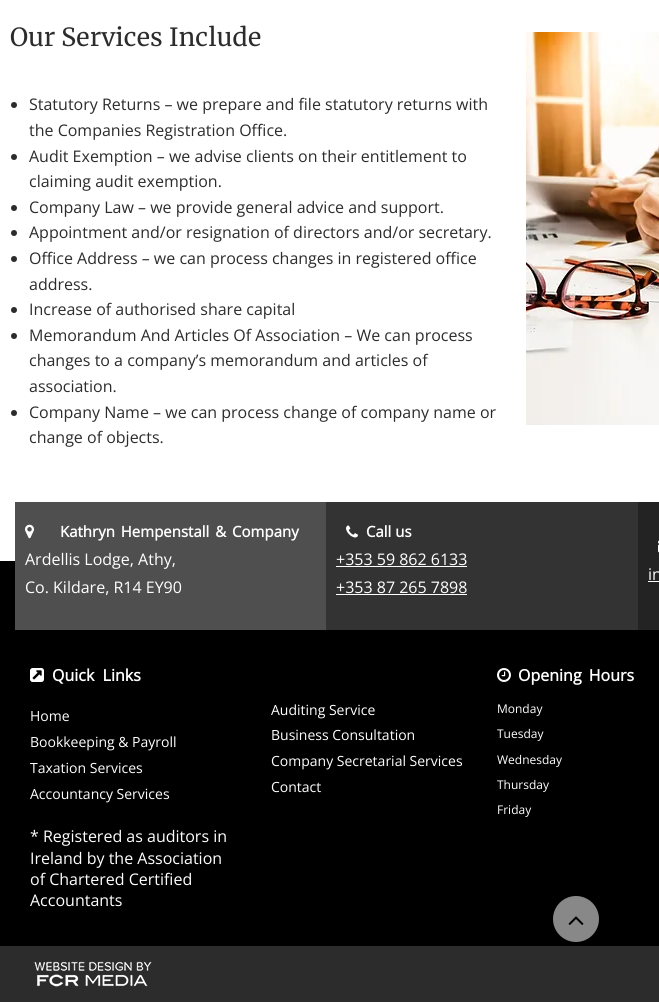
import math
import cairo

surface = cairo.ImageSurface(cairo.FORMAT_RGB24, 659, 1002)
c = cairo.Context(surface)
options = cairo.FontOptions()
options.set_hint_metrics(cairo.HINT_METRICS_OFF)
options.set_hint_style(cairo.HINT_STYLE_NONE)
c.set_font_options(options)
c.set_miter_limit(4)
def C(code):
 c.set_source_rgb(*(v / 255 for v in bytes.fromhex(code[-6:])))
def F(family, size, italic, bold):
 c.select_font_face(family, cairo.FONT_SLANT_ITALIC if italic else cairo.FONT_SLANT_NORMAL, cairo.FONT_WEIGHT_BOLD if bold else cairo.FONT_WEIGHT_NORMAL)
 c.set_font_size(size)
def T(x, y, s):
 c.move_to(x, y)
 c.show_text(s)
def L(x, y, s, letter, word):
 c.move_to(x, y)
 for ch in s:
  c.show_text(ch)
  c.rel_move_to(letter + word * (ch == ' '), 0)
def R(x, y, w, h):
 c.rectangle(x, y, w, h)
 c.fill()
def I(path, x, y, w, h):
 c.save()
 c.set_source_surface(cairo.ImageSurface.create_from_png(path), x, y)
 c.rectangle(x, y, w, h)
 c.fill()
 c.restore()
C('ffffff')
c.paint()
F('Merriweather',25,0,0)
C('2c2c2c')
T(10,46,'Our Services Include')
I('1.png',526,32,133,393)
c.arc(14,105,3,0,2 * math.pi)
c.fill()
F('Open Sans',16,0,0)
T(29,110,'Statutory Returns – we prepare and file statutory returns with')
T(29,136,'the Companies Registration Office.')
c.new_path()
c.arc(14,157,3,0,2 * math.pi)
c.fill()
T(29,162,'Audit Exemption – we advise clients on their entitlement to')
T(29,187,'claiming audit exemption.')
c.new_path()
c.arc(14,208,3,0,2 * math.pi)
c.fill()
T(29,213,'Company Law – we provide general advice and support.')
c.new_path()
c.arc(14,233,3,0,2 * math.pi)
c.fill()
T(29,238,'Appointment and/or resignation of directors and/or secretary.')
c.new_path()
c.arc(14,259,3,0,2 * math.pi)
c.fill()
T(29,264,'Office Address – we can process changes in registered office')
T(29,290,'address.')
c.new_path()
c.arc(14,310,3,0,2 * math.pi)
c.fill()
T(29,315,'Increase of authorised share capital')
c.new_path()
c.arc(14,336,3,0,2 * math.pi)
c.fill()
T(29,341,'Memorandum And Articles Of Association – We can process')
T(29,366,'changes to a company’s memorandum and articles of')
T(29,392,'association.')
c.new_path()
c.arc(14,413,3,0,2 * math.pi)
c.fill()
T(29,418,'Company Name – we can process change of company name or')
T(29,443,'change of objects.')
C('000000')
R(0,561,659,385)
C('4f4f4f')
R(15,502,311,128)
I('2.png',25,524,9,15)
F('Open Sans',15,0,1)
C('ffffff')
L(60,537,'Kathryn Hempenstall & Company',0,2)
F('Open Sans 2',16,0,0)
T(25,565,'Ardellis Lodge, Athy,')
T(25,593,'Co. Kildare, R14 EY90')
C('333333')
R(326,502,312,128)
F('Open Sans',15,0,1)
C('ffffff')
T(366,537,'Call us')
F('Open Sans 2',16,0,0)
T(336,565,'+353 59 862 6133')
R(336,566,131,1)
T(336,593,'+353 87 265 7898')
R(336,594,131,1)
I('3.png',346,525,12,13)
C('232323')
R(638,502,21,128)
I('4.png',658,540,1,13)
C('ffffff')
T(648,580,'in')
R(648,581,11,1)
I('5.png',30,668,14,14)
F('Open Sans',16,0,1)
L(52,681,'Quick Links',0,4)
F('Open Sans 2',14,0,0)
T(30,721,'Home')
T(30,747,'Bookkeeping & Payroll')
T(30,773,'Taxation Services')
T(30,799,'Accountancy Services')
F('Open Sans 2',16,0,0)
T(30,842,'* Registered as auditors in')
T(30,864,'Ireland by the Association')
T(30,885,'of Chartered Certified')
T(30,906,'Accountants')
F('Open Sans 2',14,0,0)
T(271,715,'Auditing Service')
T(271,740,'Business Consultation')
T(271,766,'Company Secretarial Services')
T(271,792,'Contact')
I('6.png',497,668,14,14)
F('Open Sans',16,0,1)
L(518,681,'Opening Hours',0,3)
F('Open Sans 2',12,0,0)
T(497,713,'Monday')
T(497,738,'Tuesday')
T(497,764,'Wednesday')
T(497,789,'Thursday')
T(497,814,'Friday')
C('2c2c2c')
R(0,946,659,56)
I('7.png',33,961,119,26)
C('888888')
c.arc(576,919,23,0,2 * math.pi)
c.fill()
I('8.png',568,916,16,9)
surface.write_to_png('o.png')
